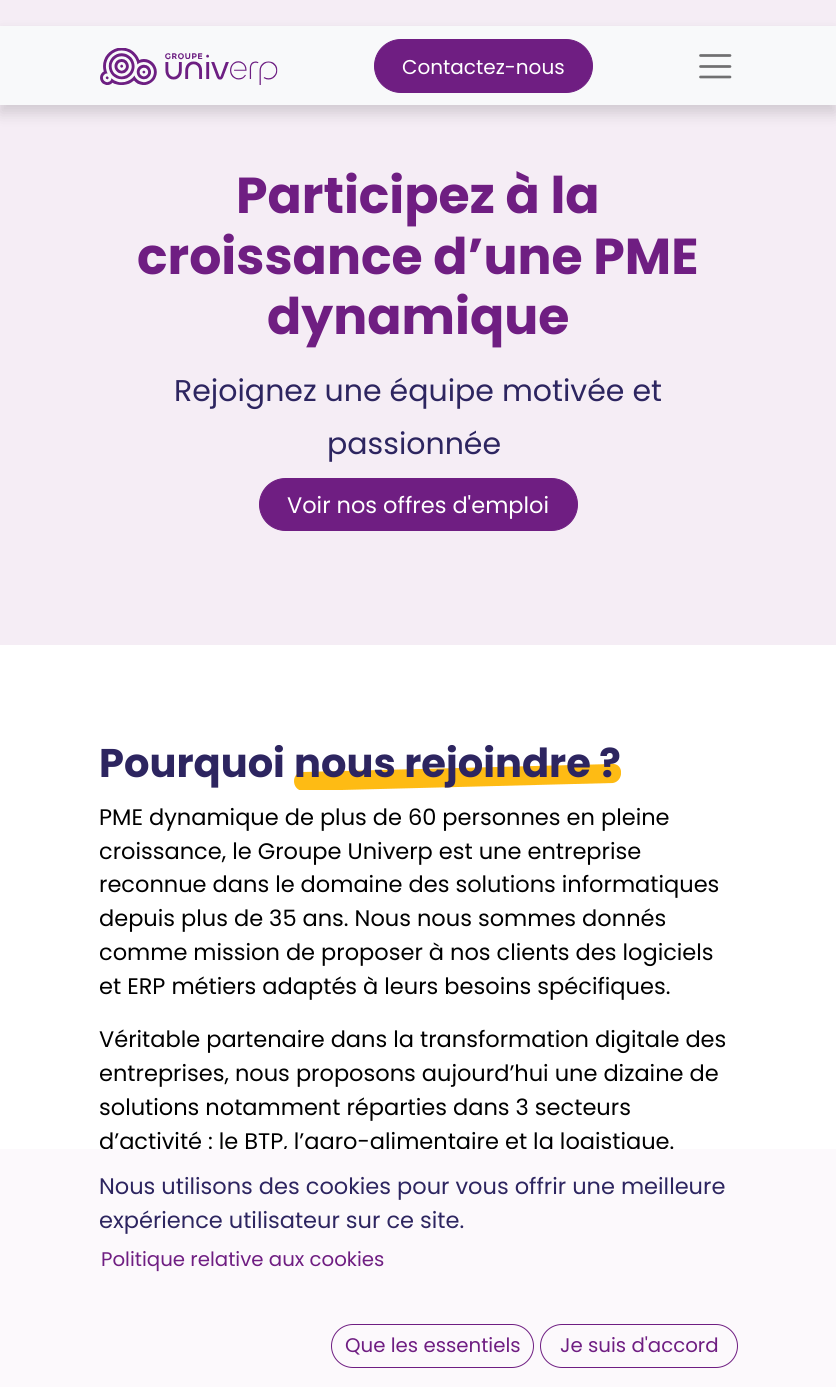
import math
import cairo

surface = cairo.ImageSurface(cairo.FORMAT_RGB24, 836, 1387)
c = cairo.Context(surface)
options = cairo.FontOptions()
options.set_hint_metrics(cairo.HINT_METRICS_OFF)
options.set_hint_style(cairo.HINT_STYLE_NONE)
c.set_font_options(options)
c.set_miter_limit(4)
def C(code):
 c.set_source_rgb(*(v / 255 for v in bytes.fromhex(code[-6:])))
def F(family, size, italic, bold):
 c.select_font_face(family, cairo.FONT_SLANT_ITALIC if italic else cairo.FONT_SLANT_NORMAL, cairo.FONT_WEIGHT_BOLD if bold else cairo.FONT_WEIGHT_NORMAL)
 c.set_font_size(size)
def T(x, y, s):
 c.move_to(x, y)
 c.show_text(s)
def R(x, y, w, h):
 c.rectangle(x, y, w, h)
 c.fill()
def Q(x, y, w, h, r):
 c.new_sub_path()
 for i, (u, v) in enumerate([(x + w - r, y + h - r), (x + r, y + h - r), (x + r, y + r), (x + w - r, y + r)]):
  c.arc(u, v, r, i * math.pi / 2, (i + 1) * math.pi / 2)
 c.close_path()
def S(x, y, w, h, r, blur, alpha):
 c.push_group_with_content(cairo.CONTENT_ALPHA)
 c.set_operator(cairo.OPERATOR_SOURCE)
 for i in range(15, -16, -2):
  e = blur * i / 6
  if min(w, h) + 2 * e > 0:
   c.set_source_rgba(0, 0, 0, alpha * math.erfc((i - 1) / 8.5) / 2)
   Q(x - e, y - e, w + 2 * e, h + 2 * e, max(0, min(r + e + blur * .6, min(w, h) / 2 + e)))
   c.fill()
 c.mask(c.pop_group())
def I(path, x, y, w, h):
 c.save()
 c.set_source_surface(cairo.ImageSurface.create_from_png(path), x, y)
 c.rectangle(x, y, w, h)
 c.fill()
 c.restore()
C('f5edf5')
c.paint()
C('000000')
S(0,34,836,79,0,7.5,.15)
C('f8f9fa')
R(0,26,836,79)
I('1.png',100,48,178,37)
C('6f1e82')
Q(374.5,39.5,218,53,26.5)
c.fill_preserve()
c.set_line_width(1)
c.stroke()
F('Poppins',20,0,0)
C('ffffff')
T(402,74,'Contactez-nous')
c.new_path()
c.move_to(700.5,55.5)
c.line_to(730,55.5)
c.move_to(700.5,66.5)
c.line_to(730,66.5)
c.move_to(700.5,77)
c.line_to(730,77)
C('707071')
c.set_line_width(2.7)
c.set_line_cap(cairo.LINE_CAP_ROUND)
c.stroke()
F('Poppins',50.5,0,1)
C('6f1e82')
T(236,213,'Participez à la')
T(137,274,'croissance d’une PME')
T(267,334,'dynamique')
F('Poppins',30,0,0)
C('2d2560')
T(174,401,'Rejoignez une équipe motivée et')
T(327,454,'passionnée')
C('6f1e82')
Q(259.5,478.5,318,52,26)
c.fill_preserve()
c.set_line_width(1)
c.set_line_cap(cairo.LINE_CAP_BUTT)
c.stroke()
F('Poppins',22.5,0,0)
C('ffffff')
T(287,513,'Voir nos offres d\'emploi')
R(0,645,836,504)
F('Poppins',40,0,1)
C('2d2560')
T(99,777,'Pourquoi')
c.save()
c.rectangle(294,764,327,26)
c.clip()
C('febb14')
c.new_path()
c.move_to(613,783)
c.curve_to(624,781,624,763,612,764)
c.line_to(303,772)
c.curve_to(291,772,291,790,303,791)
c.line_to(613,783)
c.fill()
c.restore()
T(294,777,'nous rejoindre ?')
F('Poppins',22.5,0,0)
C('000000')
T(99,825,'PME dynamique de plus de 60 personnes en pleine')
T(99,859,'croissance, le Groupe Univerp est une entreprise')
T(99,892,'reconnue dans le domaine des solutions informatiques')
T(99,926,'depuis plus de 35 ans. Nous nous sommes donnés')
T(99,960,'comme mission de proposer à nos clients des logiciels')
T(99,994,'et ERP métiers adaptés à leurs besoins spécifiques.')
T(99,1047,'Véritable partenaire dans la transformation digitale des')
T(99,1081,'entreprises, nous proposons aujourd’hui une dizaine de')
T(99,1115,'solutions notamment réparties dans 3 secteurs')
T(99,1149,'d’activité : le BTP, l’agro-alimentaire et la logistique.')
C('fcf9fc')
R(0,1149,836,238)
C('2d2560')
T(99,1194,'Nous utilisons des cookies pour vous offrir une meilleure')
T(99,1228,'expérience utilisateur sur ce site.')
F('Poppins',19.75,0,0)
C('6f1e82')
T(101,1266,'Politique relative aux cookies')
Q(331.5,1324.5,202,43,21.5)
c.stroke()
T(345,1352,'Que les essentiels')
Q(540.5,1324.5,197,43,21.5)
c.stroke()
T(560,1352,'Je suis d\'accord')
surface.write_to_png('o.png')
